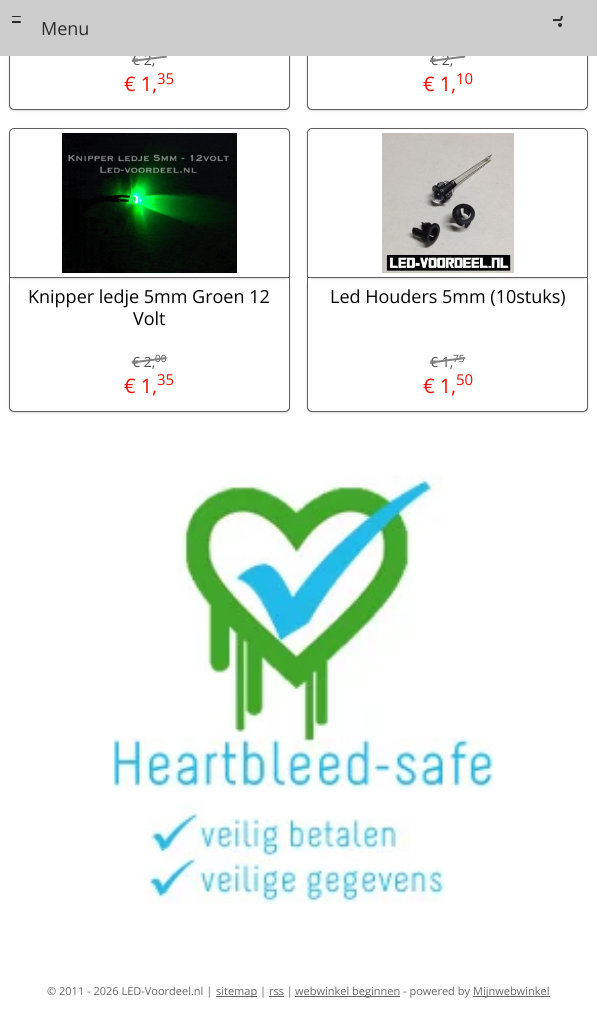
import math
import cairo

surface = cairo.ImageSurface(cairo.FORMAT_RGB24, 597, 1027)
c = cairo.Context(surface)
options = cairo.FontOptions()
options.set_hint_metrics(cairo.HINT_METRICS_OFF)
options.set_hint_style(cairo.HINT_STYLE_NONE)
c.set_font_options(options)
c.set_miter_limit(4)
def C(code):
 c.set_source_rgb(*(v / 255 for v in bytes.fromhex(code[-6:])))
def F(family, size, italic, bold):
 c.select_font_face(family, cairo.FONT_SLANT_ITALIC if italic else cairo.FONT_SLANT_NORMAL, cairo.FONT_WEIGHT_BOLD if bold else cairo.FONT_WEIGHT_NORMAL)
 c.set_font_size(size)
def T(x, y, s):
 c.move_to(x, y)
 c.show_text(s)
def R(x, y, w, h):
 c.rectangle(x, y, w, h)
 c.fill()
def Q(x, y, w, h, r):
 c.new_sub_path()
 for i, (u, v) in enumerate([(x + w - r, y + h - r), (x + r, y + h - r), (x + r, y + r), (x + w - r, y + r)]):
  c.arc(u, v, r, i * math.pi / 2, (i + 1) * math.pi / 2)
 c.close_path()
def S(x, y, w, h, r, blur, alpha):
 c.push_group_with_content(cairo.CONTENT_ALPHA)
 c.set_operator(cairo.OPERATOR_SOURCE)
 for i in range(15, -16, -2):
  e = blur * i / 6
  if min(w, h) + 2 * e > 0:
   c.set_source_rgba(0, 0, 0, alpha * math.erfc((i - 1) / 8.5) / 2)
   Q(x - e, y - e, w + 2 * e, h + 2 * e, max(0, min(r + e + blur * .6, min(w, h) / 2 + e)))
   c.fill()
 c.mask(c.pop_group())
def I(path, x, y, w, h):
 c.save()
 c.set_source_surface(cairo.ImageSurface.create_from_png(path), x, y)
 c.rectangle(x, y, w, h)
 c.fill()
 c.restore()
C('ffffff')
c.paint()
c.save()
c.set_fill_rule(cairo.FILL_RULE_EVEN_ODD)
c.new_path()
c.move_to(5,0)
c.line_to(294,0)
c.line_to(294,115)
c.line_to(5,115)
c.close_path()
c.move_to(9,-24)
c.line_to(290,-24)
c.line_to(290,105)
c.curve_to(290,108,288,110,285,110)
c.line_to(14,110)
c.curve_to(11,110,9,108,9,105)
c.close_path()
c.clip()
C('000000')
S(9,-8,281,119,5,1,.15)
c.restore()
C('606060')
c.set_fill_rule(cairo.FILL_RULE_EVEN_ODD)
c.new_path()
c.move_to(9,-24)
c.line_to(290,-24)
c.line_to(290,105)
c.curve_to(290,108,288,110,285,110)
c.line_to(14,110)
c.curve_to(11,110,9,108,9,105)
c.close_path()
c.move_to(10,-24)
c.line_to(289,-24)
c.line_to(289,105)
c.curve_to(289,107,287,109,285,109)
c.line_to(14,109)
c.curve_to(12,109,10,107,10,105)
c.close_path()
c.fill()
F('Open Sans',14,0,0)
C('4d4d4d')
T(132,65,'€ 2,')
C('828282')
c.set_fill_rule(cairo.FILL_RULE_WINDING)
c.new_path()
c.move_to(131.5,60)
c.line_to(166.5,55.5)
c.line_to(167,57.5)
c.line_to(132,62)
c.close_path()
c.fill()
c.save()
c.set_fill_rule(cairo.FILL_RULE_EVEN_ODD)
c.new_path()
c.move_to(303,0)
c.line_to(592,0)
c.line_to(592,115)
c.line_to(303,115)
c.close_path()
c.move_to(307,-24)
c.line_to(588,-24)
c.line_to(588,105)
c.curve_to(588,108,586,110,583,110)
c.line_to(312,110)
c.curve_to(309,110,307,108,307,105)
c.close_path()
c.clip()
C('000000')
S(307,-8,281,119,5,1,.15)
c.restore()
C('606060')
c.set_fill_rule(cairo.FILL_RULE_EVEN_ODD)
c.new_path()
c.move_to(307,-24)
c.line_to(588,-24)
c.line_to(588,105)
c.curve_to(588,108,586,110,583,110)
c.line_to(312,110)
c.curve_to(309,110,307,108,307,105)
c.close_path()
c.move_to(308,-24)
c.line_to(587,-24)
c.line_to(587,105)
c.curve_to(587,107,585,109,583,109)
c.line_to(312,109)
c.curve_to(310,109,308,107,308,105)
c.close_path()
c.fill()
C('4d4d4d')
T(430,65,'€ 2,')
C('828282')
c.set_fill_rule(cairo.FILL_RULE_WINDING)
c.new_path()
c.move_to(430,60)
c.line_to(465,55.5)
c.line_to(465.5,57.5)
c.line_to(430.5,62)
c.close_path()
c.fill()
C('cccccc')
R(0,0,597,56)
I('1.png',12,16,9,7)
F('Open Sans',18,0,0)
C('2b2b2b')
T(41,35,'Menu')
I('2.png',553,16,10,11)
F('Open Sans',20,0,0)
C('f21000')
T(124,91,'€ 1,')
F('Open Sans',15,0,0)
T(157,84,'35')
F('Open Sans',20,0,0)
T(423,91,'€ 1,')
F('Open Sans',15,0,0)
T(456,84,'10')
c.save()
c.set_fill_rule(cairo.FILL_RULE_EVEN_ODD)
c.new_path()
c.move_to(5,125)
c.line_to(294,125)
c.line_to(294,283)
c.line_to(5,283)
c.close_path()
c.move_to(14,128)
c.line_to(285,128)
c.curve_to(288,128,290,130,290,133)
c.line_to(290,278)
c.line_to(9,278)
c.line_to(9,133)
c.curve_to(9,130,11,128,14,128)
c.close_path()
c.clip()
C('000000')
S(9,129,281,150,5,1,.15)
c.restore()
c.new_path()
c.move_to(14,128.5)
c.line_to(285,128.5)
c.curve_to(287.5,128.5,289.5,130.5,289.5,133)
c.line_to(289.5,277.5)
c.line_to(9.5,277.5)
c.line_to(9.5,133)
c.curve_to(9.5,130.5,11.5,128.5,14,128.5)
c.close_path()
C('606060')
c.set_line_width(1)
c.stroke()
I('3.png',62,133,175,140)
c.save()
c.set_fill_rule(cairo.FILL_RULE_EVEN_ODD)
c.new_path()
c.move_to(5,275)
c.line_to(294,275)
c.line_to(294,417)
c.line_to(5,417)
c.close_path()
c.move_to(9,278)
c.line_to(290,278)
c.line_to(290,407)
c.curve_to(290,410,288,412,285,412)
c.line_to(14,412)
c.curve_to(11,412,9,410,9,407)
c.close_path()
c.clip()
C('000000')
S(9,279,281,134,5,1,.15)
c.restore()
c.set_fill_rule(cairo.FILL_RULE_EVEN_ODD)
c.new_path()
c.move_to(9,278)
c.line_to(290,278)
c.line_to(290,407)
c.curve_to(290,410,288,412,285,412)
c.line_to(14,412)
c.curve_to(11,412,9,410,9,407)
c.close_path()
c.move_to(10,278)
c.line_to(289,278)
c.line_to(289,407)
c.curve_to(289,409,287,411,285,411)
c.line_to(14,411)
c.curve_to(12,411,10,409,10,407)
c.close_path()
c.fill()
F('Open Sans',18,0,0)
C('000000')
T(28,303,'Knipper ledje 5mm Groen 12')
T(133,325,'Volt')
F('Open Sans',14,0,0)
C('4d4d4d')
T(132,367,'€ 2,')
F('Open Sans',10,0,0)
T(155,362,'00')
C('828282')
c.set_fill_rule(cairo.FILL_RULE_WINDING)
c.new_path()
c.move_to(131.5,361.5)
c.line_to(166.5,357)
c.line_to(167,359)
c.line_to(132,363.5)
c.close_path()
c.fill()
F('Open Sans',20,0,0)
C('f21000')
T(124,393,'€ 1,')
F('Open Sans',15,0,0)
T(157,385,'35')
c.save()
c.set_fill_rule(cairo.FILL_RULE_EVEN_ODD)
c.new_path()
c.move_to(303,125)
c.line_to(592,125)
c.line_to(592,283)
c.line_to(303,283)
c.close_path()
c.move_to(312,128)
c.line_to(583,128)
c.curve_to(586,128,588,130,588,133)
c.line_to(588,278)
c.line_to(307,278)
c.line_to(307,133)
c.curve_to(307,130,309,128,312,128)
c.close_path()
c.clip()
C('000000')
S(307,129,281,150,5,1,.15)
c.restore()
c.new_path()
c.move_to(312,128.5)
c.line_to(583,128.5)
c.curve_to(585.5,128.5,587.5,130.5,587.5,133)
c.line_to(587.5,277.5)
c.line_to(307.5,277.5)
c.line_to(307.5,133)
c.curve_to(307.5,130.5,309.5,128.5,312,128.5)
c.close_path()
C('606060')
c.stroke()
I('4.png',382,133,132,140)
c.save()
c.set_fill_rule(cairo.FILL_RULE_EVEN_ODD)
c.new_path()
c.move_to(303,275)
c.line_to(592,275)
c.line_to(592,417)
c.line_to(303,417)
c.close_path()
c.move_to(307,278)
c.line_to(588,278)
c.line_to(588,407)
c.curve_to(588,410,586,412,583,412)
c.line_to(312,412)
c.curve_to(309,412,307,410,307,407)
c.close_path()
c.clip()
C('000000')
S(307,279,281,134,5,1,.15)
c.restore()
c.set_fill_rule(cairo.FILL_RULE_EVEN_ODD)
c.new_path()
c.move_to(307,278)
c.line_to(588,278)
c.line_to(588,407)
c.curve_to(588,410,586,412,583,412)
c.line_to(312,412)
c.curve_to(309,412,307,410,307,407)
c.close_path()
c.move_to(308,278)
c.line_to(587,278)
c.line_to(587,407)
c.curve_to(587,409,585,411,583,411)
c.line_to(312,411)
c.curve_to(310,411,308,409,308,407)
c.close_path()
c.fill()
F('Open Sans',18,0,0)
C('000000')
T(330,303,'Led Houders 5mm (10stuks)')
F('Open Sans',14,0,0)
C('4d4d4d')
T(430,367,'€ 1,')
F('Open Sans',10,0,0)
T(453,362,'75')
C('828282')
c.set_fill_rule(cairo.FILL_RULE_WINDING)
c.new_path()
c.move_to(430,361.5)
c.line_to(465,357)
c.line_to(465.5,359)
c.line_to(430.5,363.5)
c.close_path()
c.fill()
F('Open Sans',20,0,0)
C('f21000')
T(423,393,'€ 1,')
F('Open Sans',15,0,0)
T(456,385,'50')
I('5.png',112,475,382,429)
F('Open Sans',11,0,0)
C('666666')
T(47,995,'© 2011 - 2026 LED-Voordeel.nl |')
R(216,996,41,1)
T(216,995,'sitemap')
T(260,995,'| rss |')
R(295,996,105,1)
T(295,995,'webwinkel beginnen')
T(403,995,'- powered by')
R(473,996,77,1)
T(473,995,'Mijnwebwinkel')
R(269,996,15,1)
surface.write_to_png('o.png')
